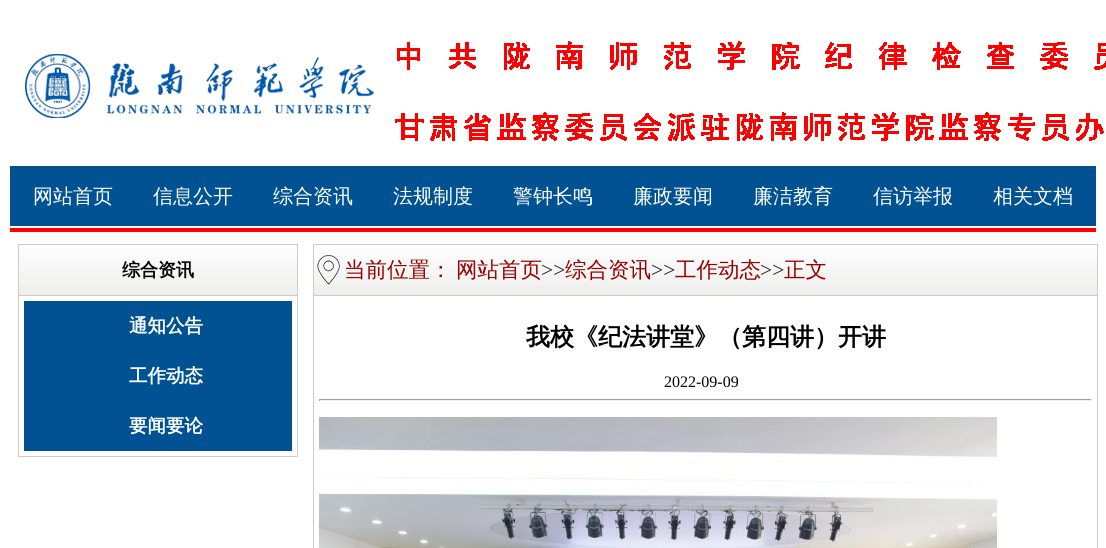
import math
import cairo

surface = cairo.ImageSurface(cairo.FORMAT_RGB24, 1106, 548)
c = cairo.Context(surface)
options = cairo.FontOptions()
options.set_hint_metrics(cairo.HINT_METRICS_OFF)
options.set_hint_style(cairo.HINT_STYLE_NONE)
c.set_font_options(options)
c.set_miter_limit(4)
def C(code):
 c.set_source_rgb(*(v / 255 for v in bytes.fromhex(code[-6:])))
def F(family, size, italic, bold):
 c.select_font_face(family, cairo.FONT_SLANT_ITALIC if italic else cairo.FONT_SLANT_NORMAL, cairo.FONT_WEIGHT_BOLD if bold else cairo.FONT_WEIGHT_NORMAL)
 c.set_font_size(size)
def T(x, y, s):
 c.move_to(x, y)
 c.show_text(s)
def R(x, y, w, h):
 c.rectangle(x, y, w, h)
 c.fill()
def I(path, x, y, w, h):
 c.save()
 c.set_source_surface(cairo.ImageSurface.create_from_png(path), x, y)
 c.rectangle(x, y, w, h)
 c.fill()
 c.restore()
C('ffffff')
c.paint()
I('1.png',25,41,1081,100)
C('015293')
R(10,166,1086,60)
F('WenQuanYi Zen Hei Medium',20,0,0)
C('ffffff')
T(33,203,'网站首页')
T(153,203,'信息公开')
T(273,203,'综合资讯')
T(393,203,'法规制度')
T(513,203,'警钟长鸣')
T(633,203,'廉政要闻')
T(753,203,'廉洁教育')
T(873,203,'信访举报')
T(993,203,'相关文档')
C('ff0000')
R(10,228,1086,4)
I('2.png',19,245,278,50)
C('cccccc')
R(18,244,280,1)
R(297,244,1,51)
R(18,244,1,51)
F('WenQuanYi Zen Hei',18,0,1)
C('000000')
T(122,276,'综合资讯')
c.rectangle(18.5,295.5,279,161)
C('cccccc')
c.set_line_width(1)
c.stroke()
C('015293')
R(24,301,268,150)
F('WenQuanYi Zen Hei',18.5,0,1)
C('ffffff')
T(129,332,'通知公告')
T(129,382,'工作动态')
T(129,432,'要闻要论')
I('3.png',314,245,783,50)
C('cccccc')
R(313,244,785,1)
R(1097,244,1,51)
R(313,244,1,51)
I('4.png',317,255,23,30)
F('WenQuanYi Zen Hei Medium',21.5,0,0)
C('990000')
T(344,277,'当前位置：')
T(456,277,'网站首页')
F('Liberation Serif',21.5,0,0)
C('222222')
T(541,277,'>>')
F('WenQuanYi Zen Hei Medium',21.5,0,0)
C('990000')
T(565,277,'综合资讯')
F('Liberation Serif',21.5,0,0)
C('222222')
T(651,277,'>>')
F('WenQuanYi Zen Hei Medium',21.5,0,0)
C('990000')
T(675,277,'工作动态')
F('Liberation Serif',21.5,0,0)
C('222222')
T(760,277,'>>')
F('WenQuanYi Zen Hei Medium',21.5,0,0)
C('990000')
T(784,277,'正文')
c.rectangle(313.5,295.5,784,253)
C('cccccc')
c.stroke()
F('WenQuanYi Zen Hei',24,0,1)
C('000000')
T(526,345,'我校《纪法讲堂》（第四讲）开讲')
F('Liberation Serif',16,0,0)
T(664,387,'2022-09-09')
C('9f9f9f')
R(319,399,773,1)
C('eeeeee')
R(1091,399,1,2)
R(319,400,773,1)
C('9f9f9f')
R(319,399,1,2)
I('5.png',319,417,678,131)
surface.write_to_png('o.png')
